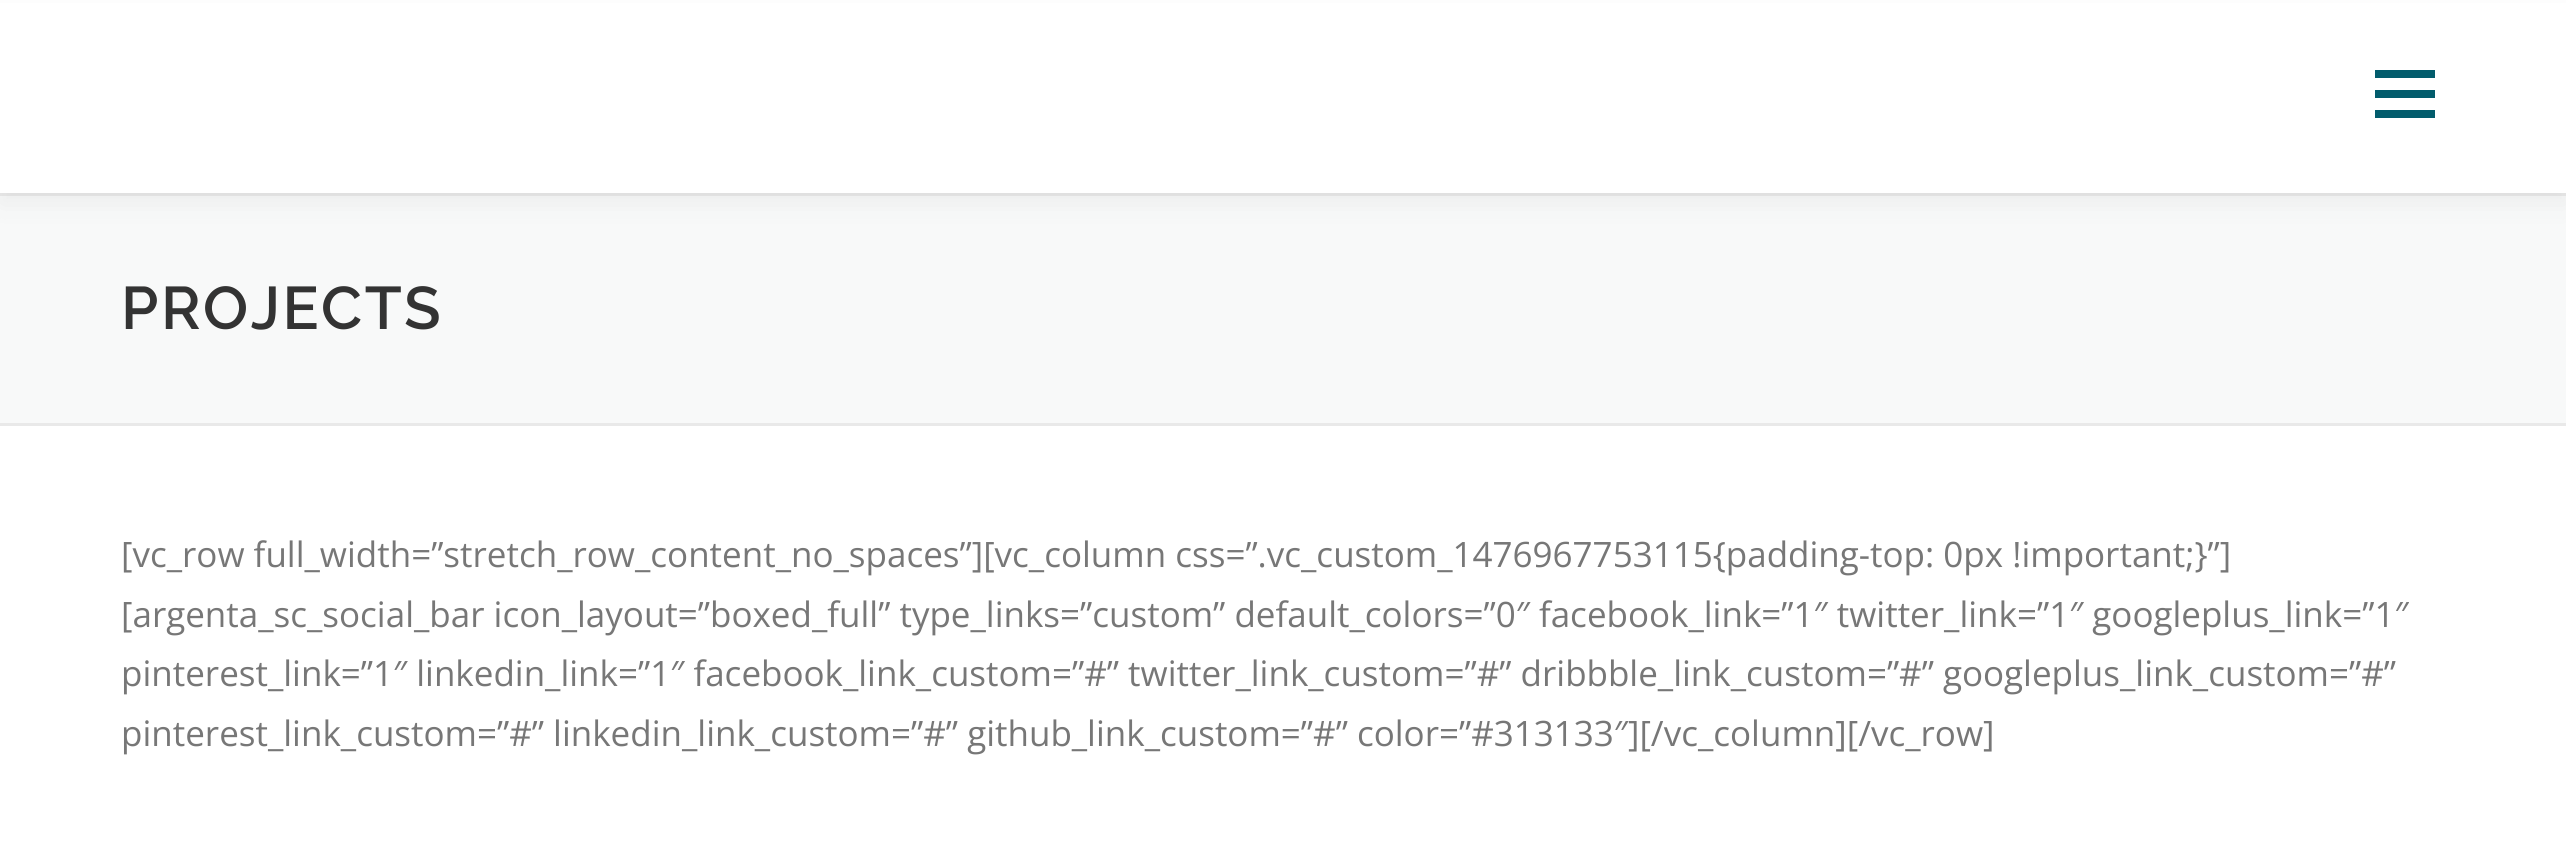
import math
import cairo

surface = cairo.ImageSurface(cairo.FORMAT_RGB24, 2566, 867)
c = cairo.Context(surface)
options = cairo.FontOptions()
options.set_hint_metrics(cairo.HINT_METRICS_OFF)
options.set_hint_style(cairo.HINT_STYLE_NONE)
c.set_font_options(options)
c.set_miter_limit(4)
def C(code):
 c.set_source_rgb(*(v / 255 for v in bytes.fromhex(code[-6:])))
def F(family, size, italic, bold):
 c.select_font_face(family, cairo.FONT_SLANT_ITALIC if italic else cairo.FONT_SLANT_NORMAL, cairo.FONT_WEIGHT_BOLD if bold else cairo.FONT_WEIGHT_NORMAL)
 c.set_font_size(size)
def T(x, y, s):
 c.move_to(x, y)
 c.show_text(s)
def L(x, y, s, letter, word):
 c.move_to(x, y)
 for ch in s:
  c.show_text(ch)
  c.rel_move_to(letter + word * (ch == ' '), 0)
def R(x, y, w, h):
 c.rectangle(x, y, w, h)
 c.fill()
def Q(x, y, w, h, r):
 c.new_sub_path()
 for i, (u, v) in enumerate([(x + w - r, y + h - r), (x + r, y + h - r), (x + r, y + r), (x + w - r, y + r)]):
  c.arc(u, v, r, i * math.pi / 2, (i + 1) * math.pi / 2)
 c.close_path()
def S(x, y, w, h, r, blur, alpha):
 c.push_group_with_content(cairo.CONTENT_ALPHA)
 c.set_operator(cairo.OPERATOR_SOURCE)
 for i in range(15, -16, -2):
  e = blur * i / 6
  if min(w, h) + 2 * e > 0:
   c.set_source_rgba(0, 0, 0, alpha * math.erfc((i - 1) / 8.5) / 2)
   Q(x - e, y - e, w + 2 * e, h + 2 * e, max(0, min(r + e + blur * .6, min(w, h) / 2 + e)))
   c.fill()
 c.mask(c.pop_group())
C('ffffff')
c.paint()
C('f8f9f9')
R(0,196,2566,227)
C('e9e9e9')
R(0,193,2566,3)
C('323232')
S(0,13,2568,192,0,12.5,.06)
C('ffffff')
R(0,3,2566,190)
C('025c6c')
R(2375,90,60,8)
R(2375,70,60,8)
R(2375,110,60,8)
C('e9e9e9')
R(0,423,2566,3)
F('Raleway SemiBold',60,0,0)
C('333333')
L(121,329,'PROJECTS',2.5,0)
F('Open Sans',35,0,0)
C('777777')
T(121,567,'[vc_row full_width=”stretch_row_content_no_spaces”][vc_column css=”.vc_custom_1476967753115{padding-top: 0px !important;}”]')
T(121,627,'[argenta_sc_social_bar icon_layout=”boxed_full” type_links=”custom” default_colors=”0″ facebook_link=”1″ twitter_link=”1″ googleplus_link=”1″')
T(121,686,'pinterest_link=”1″ linkedin_link=”1″ facebook_link_custom=”#” twitter_link_custom=”#” dribbble_link_custom=”#” googleplus_link_custom=”#”')
T(121,746,'pinterest_link_custom=”#” linkedin_link_custom=”#” github_link_custom=”#” color=”#313133″][/vc_column][/vc_row]')
surface.write_to_png('o.png')
